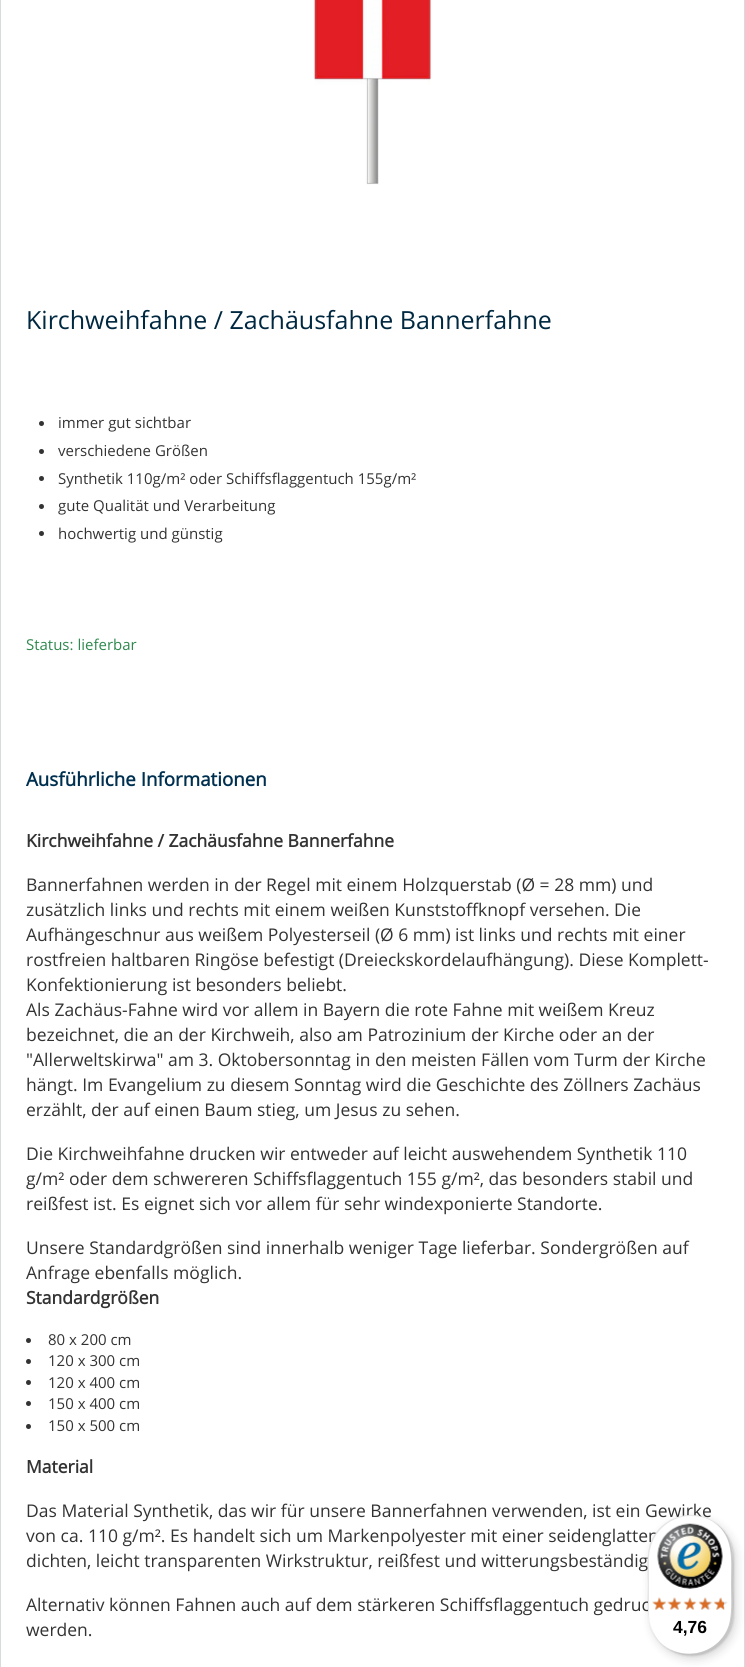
import math
import cairo

surface = cairo.ImageSurface(cairo.FORMAT_RGB24, 745, 1667)
c = cairo.Context(surface)
options = cairo.FontOptions()
options.set_hint_metrics(cairo.HINT_METRICS_OFF)
options.set_hint_style(cairo.HINT_STYLE_NONE)
c.set_font_options(options)
c.set_miter_limit(4)
def C(code):
 c.set_source_rgb(*(v / 255 for v in bytes.fromhex(code[-6:])))
def F(family, size, italic, bold):
 c.select_font_face(family, cairo.FONT_SLANT_ITALIC if italic else cairo.FONT_SLANT_NORMAL, cairo.FONT_WEIGHT_BOLD if bold else cairo.FONT_WEIGHT_NORMAL)
 c.set_font_size(size)
def T(x, y, s):
 c.move_to(x, y)
 c.show_text(s)
def R(x, y, w, h):
 c.rectangle(x, y, w, h)
 c.fill()
def Q(x, y, w, h, r):
 c.new_sub_path()
 for i, (u, v) in enumerate([(x + w - r, y + h - r), (x + r, y + h - r), (x + r, y + r), (x + w - r, y + r)]):
  c.arc(u, v, r, i * math.pi / 2, (i + 1) * math.pi / 2)
 c.close_path()
def S(x, y, w, h, r, blur, alpha):
 c.push_group_with_content(cairo.CONTENT_ALPHA)
 c.set_operator(cairo.OPERATOR_SOURCE)
 for i in range(15, -16, -2):
  e = blur * i / 6
  if min(w, h) + 2 * e > 0:
   c.set_source_rgba(0, 0, 0, alpha * math.erfc((i - 1) / 8.5) / 2)
   Q(x - e, y - e, w + 2 * e, h + 2 * e, max(0, min(r + e + blur * .6, min(w, h) / 2 + e)))
   c.fill()
 c.mask(c.pop_group())
def I(path, x, y, w, h):
 c.save()
 c.set_source_surface(cairo.ImageSurface.create_from_png(path), x, y)
 c.rectangle(x, y, w, h)
 c.fill()
 c.restore()
C('ffffff')
c.paint()
C('d7dbdb')
R(744,0,1,1667)
R(0,0,1,1667)
I('1.png',313,0,119,185)
F('Open Sans',25,0,0)
C('002840')
T(26,329,'Kirchweihfahne / Zachäusfahne Bannerfahne')
C('333333')
c.new_path()
c.arc(41.5,423.5,2.5,0,2 * math.pi)
c.fill()
F('Open Sans',15,0,0)
T(58,428,'immer gut sichtbar')
c.new_path()
c.arc(41.5,451.5,2.5,0,2 * math.pi)
c.fill()
T(58,456,'verschiedene Größen')
c.new_path()
c.arc(41.5,478.5,2.5,0,2 * math.pi)
c.fill()
T(58,484,'Synthetik 110g/m² oder Schiffsflaggentuch 155g/m²')
c.new_path()
c.arc(41.5,506.5,2.5,0,2 * math.pi)
c.fill()
T(58,511,'gute Qualität und Verarbeitung')
c.new_path()
c.arc(41.5,533.5,2.5,0,2 * math.pi)
c.fill()
T(58,539,'hochwertig und günstig')
C('2f894e')
T(26,650,'Status: lieferbar')
F('Open Sans',18.75,0,1)
C('003050')
T(26,786,'Ausführliche Informationen')
F('Open Sans',17.5,0,1)
C('333333')
T(26,847,'Kirchweihfahne / Zachäusfahne Bannerfahne')
F('Open Sans',17.5,0,0)
T(26,891,'Bannerfahnen werden in der Regel mit einem Holzquerstab (Ø = 28 mm) und')
T(26,916,'zusätzlich links und rechts mit einem weißen Kunststoffknopf versehen. Die')
T(26,941,'Aufhängeschnur aus weißem Polyesterseil (Ø 6 mm) ist links und rechts mit einer')
T(26,966,'rostfreien haltbaren Ringöse befestigt (Dreieckskordelaufhängung). Diese Komplett-')
T(26,991,'Konfektionierung ist besonders beliebt.')
T(26,1016,'Als Zachäus-Fahne wird vor allem in Bayern die rote Fahne mit weißem Kreuz')
T(26,1041,'bezeichnet, die an der Kirchweih, also am Patrozinium der Kirche oder an der')
T(26,1066,'"Allerweltskirwa" am 3. Oktobersonntag in den meisten Fällen vom Turm der Kirche')
T(26,1091,'hängt. Im Evangelium zu diesem Sonntag wird die Geschichte des Zöllners Zachäus')
T(26,1116,'erzählt, der auf einen Baum stieg, um Jesus zu sehen.')
T(26,1160,'Die Kirchweihfahne drucken wir entweder auf leicht auswehendem Synthetik 110')
T(26,1185,'g/m² oder dem schwereren Schiffsflaggentuch 155 g/m², das besonders stabil und')
T(26,1210,'reißfest ist. Es eignet sich vor allem für sehr windexponierte Standorte.')
T(26,1254,'Unsere Standardgrößen sind innerhalb weniger Tage lieferbar. Sondergrößen auf')
T(26,1279,'Anfrage ebenfalls möglich.')
F('Open Sans',17.5,0,1)
T(26,1304,'Standardgrößen')
c.new_path()
c.arc(28.5,1340.5,2.5,0,2 * math.pi)
c.fill()
F('Open Sans',15,0,0)
T(48,1345,'80 x 200 cm')
c.new_path()
c.arc(28.5,1361.5,2.5,0,2 * math.pi)
c.fill()
T(48,1366,'120 x 300 cm')
c.new_path()
c.arc(28.5,1382.5,2.5,0,2 * math.pi)
c.fill()
T(48,1388,'120 x 400 cm')
c.new_path()
c.arc(28.5,1403.5,2.5,0,2 * math.pi)
c.fill()
T(48,1409,'150 x 400 cm')
c.new_path()
c.arc(28.5,1426.5,2.5,0,2 * math.pi)
c.fill()
T(48,1431,'150 x 500 cm')
F('Open Sans',17.5,0,1)
T(26,1473,'Material')
F('Open Sans',17.5,0,0)
T(26,1517,'Das Material Synthetik, das wir für unsere Bannerfahnen verwenden, ist ein Gewirke')
T(26,1542,'von ca. 110 g/m². Es handelt sich um Markenpolyester mit einer seidenglatten')
T(26,1567,'dichten, leicht transparenten Wirkstruktur, reißfest und witterungsbeständig')
T(26,1611,'Alternativ können Fahnen auch auf dem stärkeren Schiffsflaggentuch gedruc')
T(26,1636,'werden.')
C('000000')
S(651,1519,85,140,42.5,5,.15)
S(649,1516,85,140,42.5,1,.15)
C('ffffff')
Q(648,1515,85,140,42.5)
c.fill()
c.set_source_rgba(0,0,0,0.1)
c.new_path()
c.move_to(691,1516)
c.curve_to(704,1516,715,1521,723,1530)
c.curve_to(702,1506,664,1512,651,1541)
c.curve_to(646,1553,648,1571,648,1585)
c.curve_to(648,1604,645,1625,659,1641)
c.curve_to(653,1633,649,1624,649,1614)
c.line_to(649,1559)
c.curve_to(649,1535,668,1516,691,1516)
c.close_path()
c.fill()
c.set_source_rgba(0,0,0,0.2)
c.new_path()
c.move_to(669,1649)
c.curve_to(694,1664,726,1650,732,1621)
c.curve_to(734,1611,733,1596,733,1585)
c.curve_to(733,1559,737,1534,710,1520)
c.curve_to(735,1534,731,1559,731,1584)
c.curve_to(731,1594,732,1609,730,1620)
c.curve_to(725,1648,694,1662,669,1649)
c.close_path()
c.fill()
c.set_source_rgba(0.196,0.196,0.196,0.2)
c.new_path()
c.move_to(662,1644)
c.curve_to(670,1651,680,1655,690,1655)
c.curve_to(714,1655,733,1636,733,1612)
c.line_to(733,1558)
c.curve_to(733,1545,727,1533,718,1525)
c.curve_to(736,1541,732,1563,732,1584)
c.curve_to(732,1598,734,1616,729,1628)
c.curve_to(717,1654,684,1662,662,1644)
c.close_path()
c.fill()
c.set_source_rgba(1,1,1,0.3)
c.new_path()
c.move_to(662,1644)
c.curve_to(670,1651,680,1655,690,1655)
c.curve_to(714,1655,733,1636,733,1612)
c.line_to(733,1558)
c.curve_to(733,1545,727,1533,718,1525)
c.curve_to(736,1541,732,1563,732,1584)
c.curve_to(732,1598,734,1616,729,1628)
c.curve_to(717,1654,684,1662,662,1644)
c.close_path()
c.fill()
I('2.png',657,1523,66,66)
I('3.png',652,1597,14,13)
I('4.png',669,1597,12,13)
I('5.png',684,1598,12,12)
I('6.png',699,1597,14,13)
I('7.png',714,1598,14,12)
I('8.png',652,1597,15,13)
I('9.png',667,1597,15,13)
I('10.png',683,1597,14,13)
I('11.png',698,1597,14,13)
I('12.png',713,1597,11,13)
F('Liberation Sans',17.5,0,1)
C('000000')
T(673,1633,'4,76')
surface.write_to_png('o.png')
